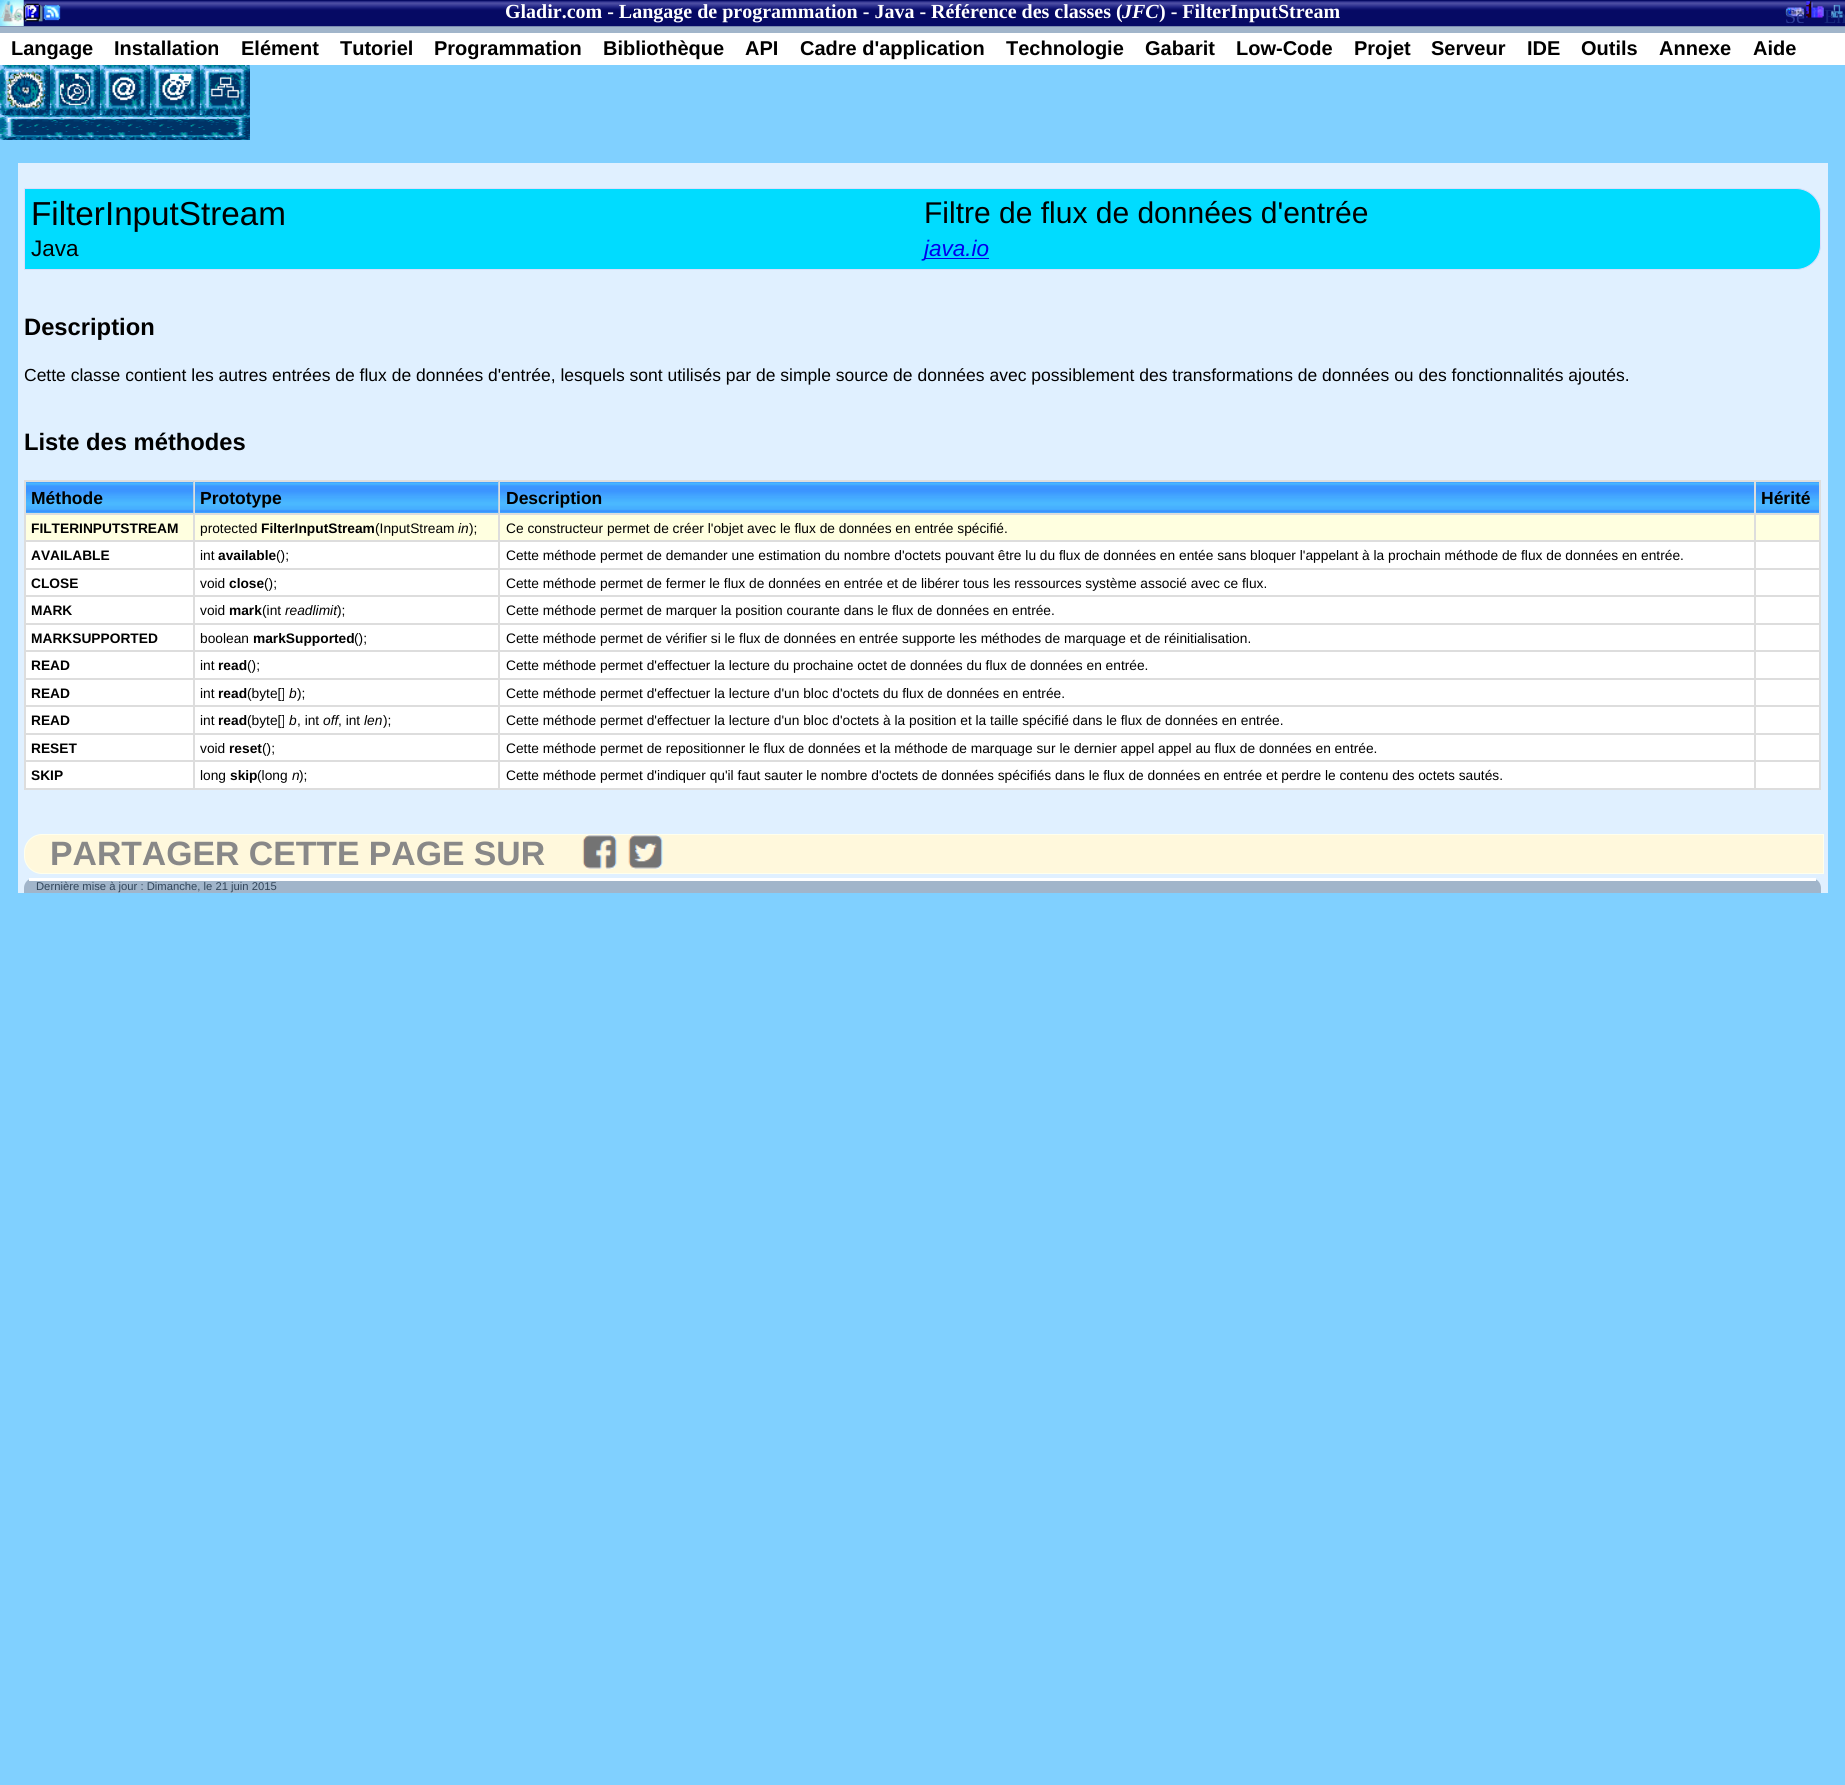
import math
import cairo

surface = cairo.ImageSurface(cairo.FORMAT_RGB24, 1845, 1785)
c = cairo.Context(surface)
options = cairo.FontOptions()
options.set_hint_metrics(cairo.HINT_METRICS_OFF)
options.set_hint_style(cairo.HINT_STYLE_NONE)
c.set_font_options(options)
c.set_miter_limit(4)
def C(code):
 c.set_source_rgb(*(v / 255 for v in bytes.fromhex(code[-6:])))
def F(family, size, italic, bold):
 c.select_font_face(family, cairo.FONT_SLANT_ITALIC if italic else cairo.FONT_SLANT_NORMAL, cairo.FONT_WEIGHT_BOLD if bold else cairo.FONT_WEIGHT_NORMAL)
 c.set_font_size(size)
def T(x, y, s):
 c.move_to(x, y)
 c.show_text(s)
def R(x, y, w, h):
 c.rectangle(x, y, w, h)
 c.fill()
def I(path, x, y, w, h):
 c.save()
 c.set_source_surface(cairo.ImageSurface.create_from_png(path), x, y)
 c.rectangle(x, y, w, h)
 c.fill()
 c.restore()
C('80d0ff')
c.paint()
C('a1b5ca')
R(0,26,1845,7)
I('1.png',0,0,1845,27)
I('2.png',0,0,24,27)
F('Liberation Serif',20,0,0)
C('bed6d6')
T(0,18,'Ac')
I('3.png',23,3,20,19)
I('4.png',43,4,18,17)
F('Liberation Serif',20,0,1)
C('ffffff')
T(505,18,'Gladir.com - Langage de programmation - Java - Référence des classes (')
F('Liberation Serif',20,1,1)
T(1122,18,'JFC')
F('Liberation Serif',20,0,1)
T(1159,18,') - FilterInputStream')
I('5.png',1785,7,20,10)
c.save()
c.rectangle(1785,6,20,17)
c.clip()
F('Liberation Serif',20,0,0)
C('2d3d98')
T(1785,23,'Se')
c.restore()
I('6.png',1806,1,18,17)
I('7.png',1831,4,12,14)
F('Liberation Serif',20,0,0)
C('17287b')
T(1824,23,'En')
C('ffffff')
R(0,33,1845,32)
F('Liberation Sans',20,0,1)
C('000000')
T(11,55,'Langage')
T(114,55,'Installation')
T(241,55,'Elément')
T(340,55,'Tutoriel')
T(434,55,'Programmation')
T(603,55,'Bibliothèque')
T(745,55,'API')
T(800,55,'Cadre d\'application')
T(1006,55,'Technologie')
T(1145,55,'Gabarit')
T(1236,55,'Low-Code')
T(1354,55,'Projet')
T(1431,55,'Serveur')
T(1527,55,'IDE')
T(1581,55,'Outils')
T(1659,55,'Annexe')
T(1753,55,'Aide')
I('8.png',0,65,50,50)
I('9.png',50,65,50,50)
I('10.png',100,65,50,50)
I('11.png',150,65,50,50)
I('12.png',200,65,50,50)
I('13.png',0,115,250,25)
C('e0f0ff')
R(18,163,1810,730)
C('00dcff')
c.new_path()
c.move_to(24.5,188.5)
c.line_to(1796,188.5)
c.curve_to(1809.5,188.5,1820.5,199.5,1820.5,213)
c.line_to(1820.5,245)
c.curve_to(1820.5,258.5,1809.5,269.5,1796,269.5)
c.line_to(24.5,269.5)
c.close_path()
c.fill_preserve()
C('ddddfb')
c.set_line_width(1)
c.stroke()
F('Liberation Sans',33.25,0,0)
C('000000')
T(31,225,'FilterInputStream')
F('Liberation Sans',30,0,0)
T(924,223,'Filtre de flux de données d\'entrée')
F('Liberation Sans',22.5,0,0)
T(31,256,'Java')
C('0000ee')
R(924,258,65,1)
F('Liberation Sans',22.5,1,0)
T(924,256,'java.io')
F('Liberation Sans',23.75,0,1)
C('000000')
T(24,335,'Description')
F('Liberation Sans',17.5,0,0)
T(24,381,'Cette classe contient les autres entrées de flux de données d\'entrée, lesquels sont utilisés par de simple source de données avec possiblement des transformations de données ou des fonctionnalités ajoutés.')
F('Liberation Sans',23.75,0,1)
T(24,450,'Liste des méthodes')
C('ffffff')
R(26,542,1793,246)
c.rectangle(24.5,480.5,1796,309)
C('dddddd')
c.stroke()
I('14.png',26,482,167,31)
c.rectangle(25.5,481.5,168,32)
c.stroke()
F('Liberation Sans',17.5,0,1)
C('000000')
T(31,504,'Méthode')
I('15.png',193,481,305,33)
c.rectangle(194.5,481.5,304,32)
C('dddddd')
c.stroke()
C('000000')
T(200,504,'Prototype')
I('16.png',498,481,1256,33)
c.rectangle(499.5,481.5,1255,32)
C('dddddd')
c.stroke()
C('000000')
T(506,504,'Description')
I('17.png',1756,482,63,31)
c.rectangle(1755.5,481.5,64,32)
C('dddddd')
c.stroke()
C('000000')
T(1761,504,'Hérité')
C('ffffe0')
R(26,515,1793,25)
c.rectangle(25.5,514.5,168,26)
C('dddddd')
c.stroke()
F('Liberation Sans',13.75,0,1)
C('000000')
T(31,533,'FILTERINPUTSTREAM')
c.rectangle(194.5,514.5,304,26)
C('dddddd')
c.stroke()
F('Liberation Sans',13.75,0,0)
C('000000')
T(200,533,'protected')
F('Liberation Sans',13.75,0,1)
T(261,533,'FilterInputStream')
F('Liberation Sans',13.75,0,0)
T(375,533,'(InputStream')
F('Liberation Sans',13.75,1,0)
T(458,533,'in')
F('Liberation Sans',13.75,0,0)
T(469,533,');')
c.rectangle(499.5,514.5,1255,26)
C('dddddd')
c.stroke()
C('000000')
T(506,533,'Ce constructeur permet de créer l\'objet avec le flux de données en entrée spécifié.')
c.rectangle(1755.5,514.5,64,26)
C('dddddd')
c.stroke()
c.rectangle(25.5,541.5,168,27)
c.stroke()
F('Liberation Sans',13.75,0,1)
C('000000')
T(31,560,'AVAILABLE')
c.rectangle(194.5,541.5,304,27)
C('dddddd')
c.stroke()
F('Liberation Sans',13.75,0,0)
C('000000')
T(200,560,'int')
F('Liberation Sans',13.75,0,1)
T(218,560,'available')
F('Liberation Sans',13.75,0,0)
T(276,560,'();')
c.rectangle(499.5,541.5,1255,27)
C('dddddd')
c.stroke()
C('000000')
T(506,560,'Cette méthode permet de demander une estimation du nombre d\'octets pouvant être lu du flux de données en entée sans bloquer l\'appelant à la prochain méthode de flux de données en entrée.')
c.rectangle(1755.5,541.5,64,27)
C('dddddd')
c.stroke()
c.rectangle(25.5,569.5,168,26)
c.stroke()
F('Liberation Sans',13.75,0,1)
C('000000')
T(31,588,'CLOSE')
c.rectangle(194.5,569.5,304,26)
C('dddddd')
c.stroke()
F('Liberation Sans',13.75,0,0)
C('000000')
T(200,588,'void')
F('Liberation Sans',13.75,0,1)
T(229,588,'close')
F('Liberation Sans',13.75,0,0)
T(264,588,'();')
c.rectangle(499.5,569.5,1255,26)
C('dddddd')
c.stroke()
C('000000')
T(506,588,'Cette méthode permet de fermer le flux de données en entrée et de libérer tous les ressources système associé avec ce flux.')
c.rectangle(1755.5,569.5,64,26)
C('dddddd')
c.stroke()
c.rectangle(25.5,596.5,168,27)
c.stroke()
F('Liberation Sans',13.75,0,1)
C('000000')
T(31,615,'MARK')
c.rectangle(194.5,596.5,304,27)
C('dddddd')
c.stroke()
F('Liberation Sans',13.75,0,0)
C('000000')
T(200,615,'void')
F('Liberation Sans',13.75,0,1)
T(229,615,'mark')
F('Liberation Sans',13.75,0,0)
T(262,615,'(int')
F('Liberation Sans',13.75,1,0)
T(285,615,'readlimit')
F('Liberation Sans',13.75,0,0)
T(337,615,');')
c.rectangle(499.5,596.5,1255,27)
C('dddddd')
c.stroke()
C('000000')
T(506,615,'Cette méthode permet de marquer la position courante dans le flux de données en entrée.')
c.rectangle(1755.5,596.5,64,27)
C('dddddd')
c.stroke()
c.rectangle(25.5,624.5,168,26)
c.stroke()
F('Liberation Sans',13.75,0,1)
C('000000')
T(31,643,'MARKSUPPORTED')
c.rectangle(194.5,624.5,304,26)
C('dddddd')
c.stroke()
F('Liberation Sans',13.75,0,0)
C('000000')
T(200,643,'boolean')
F('Liberation Sans',13.75,0,1)
T(253,643,'markSupported')
F('Liberation Sans',13.75,0,0)
T(354,643,'();')
c.rectangle(499.5,624.5,1255,26)
C('dddddd')
c.stroke()
C('000000')
T(506,643,'Cette méthode permet de vérifier si le flux de données en entrée supporte les méthodes de marquage et de réinitialisation.')
c.rectangle(1755.5,624.5,64,26)
C('dddddd')
c.stroke()
c.rectangle(25.5,651.5,168,27)
c.stroke()
F('Liberation Sans',13.75,0,1)
C('000000')
T(31,670,'READ')
c.rectangle(194.5,651.5,304,27)
C('dddddd')
c.stroke()
F('Liberation Sans',13.75,0,0)
C('000000')
T(200,670,'int')
F('Liberation Sans',13.75,0,1)
T(218,670,'read')
F('Liberation Sans',13.75,0,0)
T(247,670,'();')
c.rectangle(499.5,651.5,1255,27)
C('dddddd')
c.stroke()
C('000000')
T(506,670,'Cette méthode permet d\'effectuer la lecture du prochaine octet de données du flux de données en entrée.')
c.rectangle(1755.5,651.5,64,27)
C('dddddd')
c.stroke()
c.rectangle(25.5,679.5,168,26)
c.stroke()
F('Liberation Sans',13.75,0,1)
C('000000')
T(31,698,'READ')
c.rectangle(194.5,679.5,304,26)
C('dddddd')
c.stroke()
F('Liberation Sans',13.75,0,0)
C('000000')
T(200,698,'int')
F('Liberation Sans',13.75,0,1)
T(218,698,'read')
F('Liberation Sans',13.75,0,0)
T(247,698,'(byte[]')
F('Liberation Sans',13.75,1,0)
T(289,698,'b')
F('Liberation Sans',13.75,0,0)
T(297,698,');')
c.rectangle(499.5,679.5,1255,26)
C('dddddd')
c.stroke()
C('000000')
T(506,698,'Cette méthode permet d\'effectuer la lecture d\'un bloc d\'octets du flux de données en entrée.')
c.rectangle(1755.5,679.5,64,26)
C('dddddd')
c.stroke()
c.rectangle(25.5,706.5,168,27)
c.stroke()
F('Liberation Sans',13.75,0,1)
C('000000')
T(31,725,'READ')
c.rectangle(194.5,706.5,304,27)
C('dddddd')
c.stroke()
F('Liberation Sans',13.75,0,0)
C('000000')
T(200,725,'int')
F('Liberation Sans',13.75,0,1)
T(218,725,'read')
F('Liberation Sans',13.75,0,0)
T(247,725,'(byte[]')
F('Liberation Sans',13.75,1,0)
T(289,725,'b')
F('Liberation Sans',13.75,0,0)
T(297,725,', int')
F('Liberation Sans',13.75,1,0)
T(323,725,'off')
F('Liberation Sans',13.75,0,0)
T(338,725,', int')
F('Liberation Sans',13.75,1,0)
T(364,725,'len')
F('Liberation Sans',13.75,0,0)
T(383,725,');')
c.rectangle(499.5,706.5,1255,27)
C('dddddd')
c.stroke()
C('000000')
T(506,725,'Cette méthode permet d\'effectuer la lecture d\'un bloc d\'octets à la position et la taille spécifié dans le flux de données en entrée.')
c.rectangle(1755.5,706.5,64,27)
C('dddddd')
c.stroke()
c.rectangle(25.5,734.5,168,26)
c.stroke()
F('Liberation Sans',13.75,0,1)
C('000000')
T(31,753,'RESET')
c.rectangle(194.5,734.5,304,26)
C('dddddd')
c.stroke()
F('Liberation Sans',13.75,0,0)
C('000000')
T(200,753,'void')
F('Liberation Sans',13.75,0,1)
T(229,753,'reset')
F('Liberation Sans',13.75,0,0)
T(262,753,'();')
c.rectangle(499.5,734.5,1255,26)
C('dddddd')
c.stroke()
C('000000')
T(506,753,'Cette méthode permet de repositionner le flux de données et la méthode de marquage sur le dernier appel appel au flux de données en entrée.')
c.rectangle(1755.5,734.5,64,26)
C('dddddd')
c.stroke()
c.rectangle(25.5,761.5,168,27)
c.stroke()
F('Liberation Sans',13.75,0,1)
C('000000')
T(31,780,'SKIP')
c.rectangle(194.5,761.5,304,27)
C('dddddd')
c.stroke()
F('Liberation Sans',13.75,0,0)
C('000000')
T(200,780,'long')
F('Liberation Sans',13.75,0,1)
T(230,780,'skip')
F('Liberation Sans',13.75,0,0)
T(257,780,'(long')
F('Liberation Sans',13.75,1,0)
T(292,780,'n')
F('Liberation Sans',13.75,0,0)
T(299,780,');')
c.rectangle(499.5,761.5,1255,27)
C('dddddd')
c.stroke()
C('000000')
T(506,780,'Cette méthode permet d\'indiquer qu\'il faut sauter le nombre d\'octets de données spécifiés dans le flux de données en entrée et perdre le contenu des octets sautés.')
c.rectangle(1755.5,761.5,64,27)
C('dddddd')
c.stroke()
C('fff8dc')
c.new_path()
c.move_to(42,834.5)
c.line_to(1823.5,834.5)
c.line_to(1823.5,873.5)
c.line_to(42,873.5)
c.curve_to(32.5,873.5,24.5,865.5,24.5,856)
c.line_to(24.5,852)
c.curve_to(24.5,842.5,32.5,834.5,42,834.5)
c.close_path()
c.fill_preserve()
C('ffffec')
c.stroke()
F('Liberation Sans',33.75,0,1)
C('888888')
T(50,865,'PARTAGER CETTE PAGE SUR')
I('18.png',582,835,35,34)
I('19.png',628,835,35,34)
C('a1b5ca')
c.new_path()
c.move_to(34,878)
c.line_to(1811,878)
c.curve_to(1816.5,878,1821,882.5,1821,888)
c.line_to(1821,893)
c.line_to(24,893)
c.line_to(24,888)
c.curve_to(24,882.5,28.5,878,34,878)
c.close_path()
c.fill()
C('ffffff')
R(29,878,1787,3)
F('Liberation Sans',11.25,0,0)
C('31455a')
T(36,890,'Dernière mise à jour : Dimanche, le 21 juin 2015')
surface.write_to_png('o.png')
